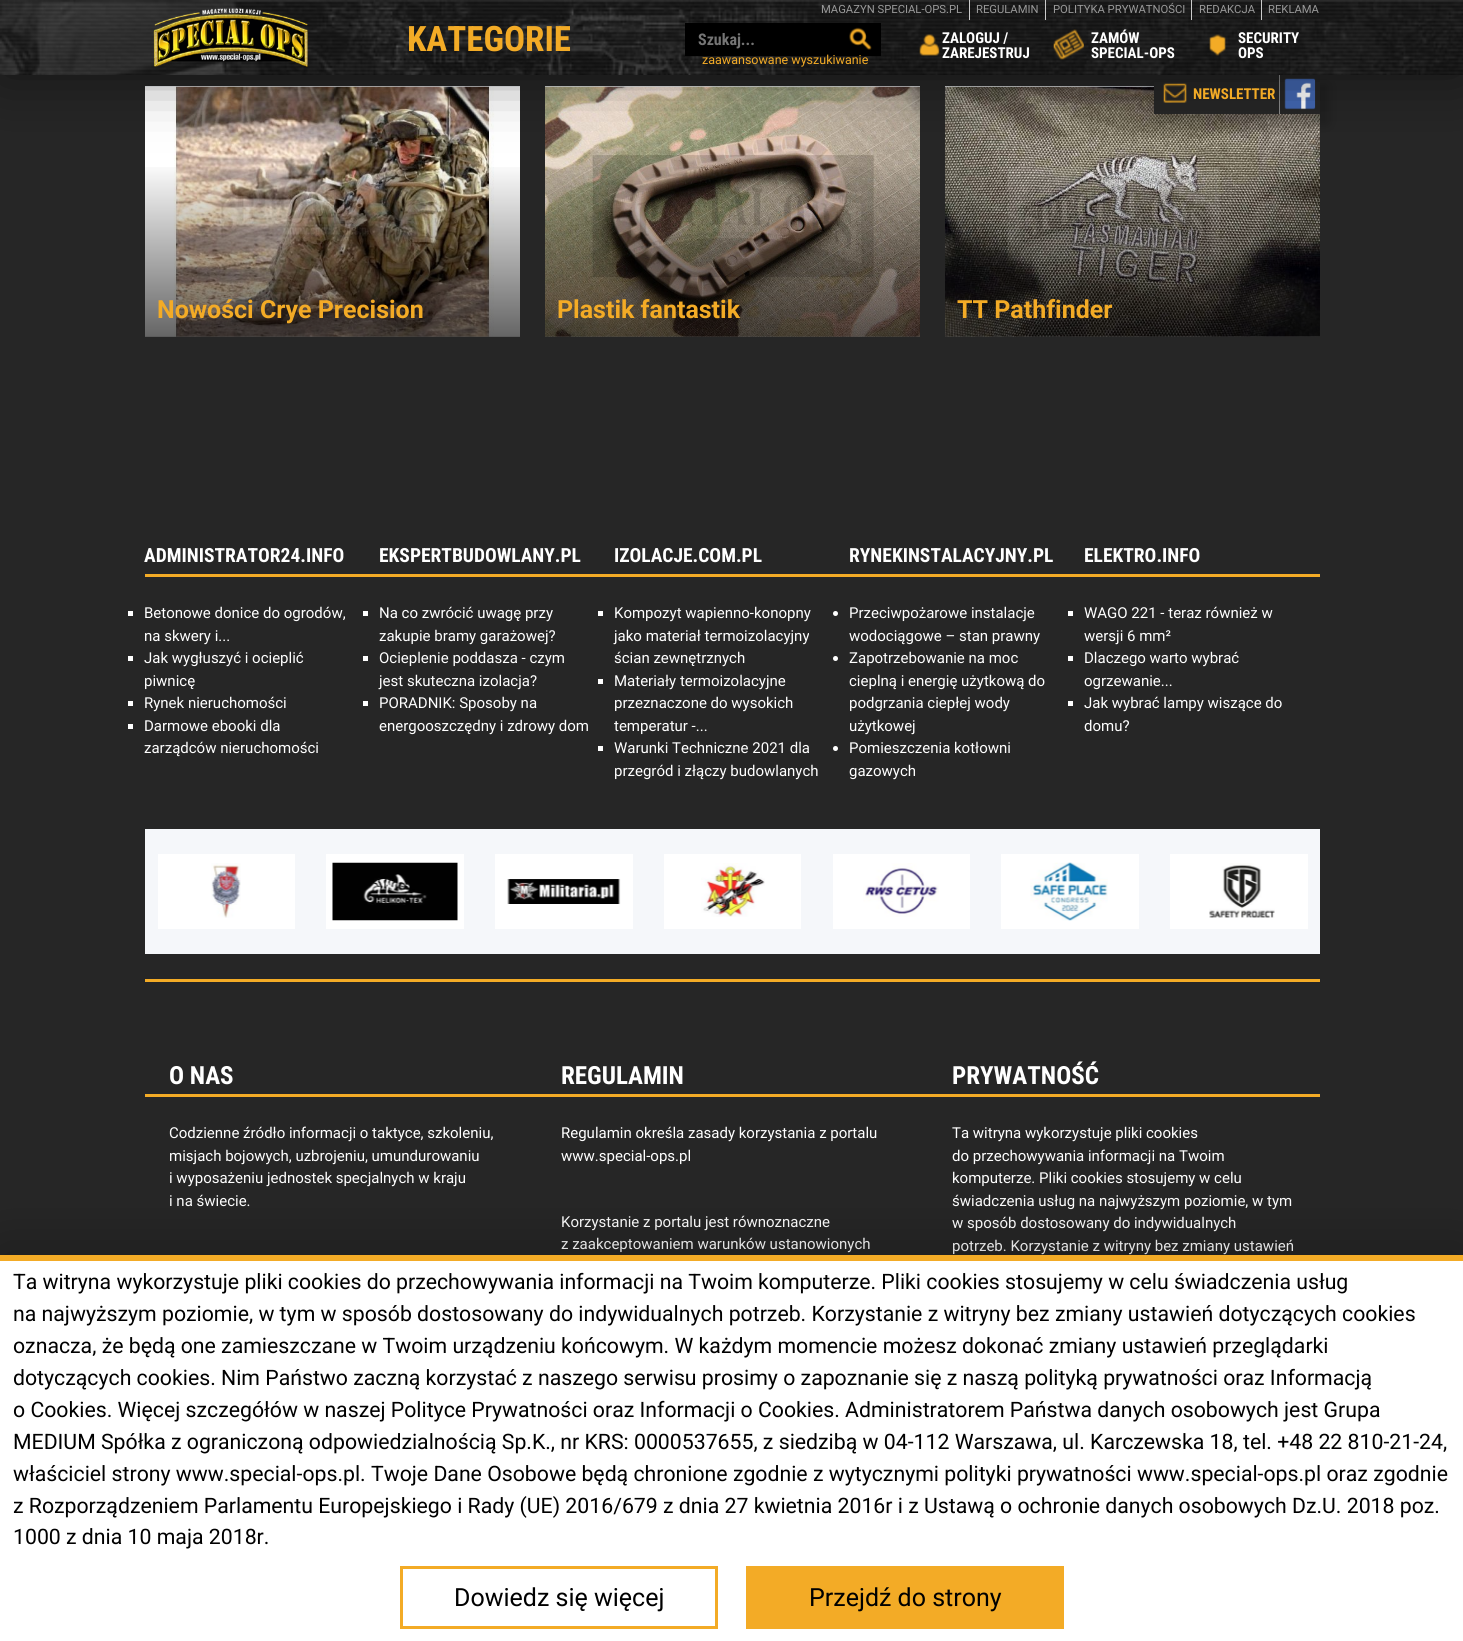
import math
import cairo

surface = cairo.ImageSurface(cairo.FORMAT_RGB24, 1463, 1641)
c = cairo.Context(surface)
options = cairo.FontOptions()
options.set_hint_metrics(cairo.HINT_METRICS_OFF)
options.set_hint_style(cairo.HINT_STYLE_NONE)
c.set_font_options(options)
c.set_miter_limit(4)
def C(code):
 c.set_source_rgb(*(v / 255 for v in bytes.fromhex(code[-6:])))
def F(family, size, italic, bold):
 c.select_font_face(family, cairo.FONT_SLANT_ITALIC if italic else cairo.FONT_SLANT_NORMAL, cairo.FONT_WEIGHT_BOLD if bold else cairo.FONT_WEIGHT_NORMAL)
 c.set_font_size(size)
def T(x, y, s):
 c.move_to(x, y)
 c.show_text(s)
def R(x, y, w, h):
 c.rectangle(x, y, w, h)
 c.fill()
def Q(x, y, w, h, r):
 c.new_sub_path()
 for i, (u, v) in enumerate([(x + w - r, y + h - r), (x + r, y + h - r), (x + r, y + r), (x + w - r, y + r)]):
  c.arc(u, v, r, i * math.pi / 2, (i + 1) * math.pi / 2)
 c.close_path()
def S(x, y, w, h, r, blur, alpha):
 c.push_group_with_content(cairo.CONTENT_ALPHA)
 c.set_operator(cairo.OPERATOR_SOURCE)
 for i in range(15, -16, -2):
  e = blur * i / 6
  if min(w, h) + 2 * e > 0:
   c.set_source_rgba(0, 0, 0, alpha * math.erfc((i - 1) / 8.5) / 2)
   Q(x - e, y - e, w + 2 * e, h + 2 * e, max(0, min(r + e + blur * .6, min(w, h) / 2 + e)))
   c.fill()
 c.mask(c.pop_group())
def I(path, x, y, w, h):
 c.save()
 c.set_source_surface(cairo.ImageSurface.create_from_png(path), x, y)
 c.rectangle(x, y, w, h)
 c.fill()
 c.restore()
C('262626')
c.paint()
C('e6e9ed')
R(945,86,209,1)
I('11.png',945,86,375,251)
C('000000')
S(1154,84,126,40,0,6,.2)
C('262626')
R(1154,82,125,32)
I('7.png',1163,83,24,20)
C('000000')
S(1288,84,40,40,0,6,.2)
C('262626')
R(1280,82,40,32)
I('8.png',1284,78,32,32)
C('888888')
R(1279,74,1,40)
C('e6e9ed')
R(145,86,375,1)
I('9.png',145,86,375,251)
gradient = cairo.LinearGradient(333,86,333,336)
gradient.add_color_stop_rgba(0,0,0,0,0)
gradient.add_color_stop_rgba(.3,0,0,0,0)
gradient.add_color_stop_rgba(1,0,0,0,.6)
c.set_source(gradient)
R(145,167,375,169)
C('e6e9ed')
R(545,86,375,1)
I('10.png',545,86,375,251)
gradient = cairo.LinearGradient(733,86,733,336)
gradient.add_color_stop_rgba(0,0,0,0,0)
gradient.add_color_stop_rgba(.3,0,0,0,0)
gradient.add_color_stop_rgba(1,0,0,0,.6)
c.set_source(gradient)
R(545,167,375,169)
gradient = cairo.LinearGradient(1133,86,1133,336)
gradient.add_color_stop_rgba(0,0,0,0,0)
gradient.add_color_stop_rgba(.3,0,0,0,0)
gradient.add_color_stop_rgba(1,0,0,0,.6)
c.set_source(gradient)
R(945,167,375,169)
C('000000')
S(0,0,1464,75,0,31,.5)
I('1.png',0,0,1463,75)
I('2.png',153,8,155,59)
F('Roboto Condensed',35,0,1)
C('f3ab26')
T(407,51,'KATEGORIE')
C('cccccc')
R(969,0,1,20)
F('Roboto',11.25,0,0)
C('999999')
T(821,13,'MAGAZYN SPECIAL-OPS.PL')
C('cccccc')
R(1045,0,1,20)
C('999999')
T(976,13,'REGULAMIN')
C('cccccc')
R(1191,0,1,20)
C('999999')
T(1053,13,'POLITYKA PRYWATNOŚCI')
C('cccccc')
R(1261,0,1,20)
C('999999')
T(1199,13,'REDAKCJA')
T(1268,13,'REKLAMA')
C('000000')
R(685,23,196,33)
F('Roboto Condensed',16,0,1)
C('757575')
T(698,45,'Szukaj...')
I('3.png',849,27,23,23)
F('Roboto',12.5,0,0)
C('f3ab26')
T(702,64,'zaawansowane wyszukiwanie')
I('4.png',919,34,21,22)
F('Roboto Condensed',15,0,1)
C('ffffff')
T(942,43,'ZALOGUJ /')
T(942,58,'ZAREJESTRUJ')
I('5.png',1053,29,31,31)
T(1091,43,'ZAMÓW')
T(1091,58,'SPECIAL-OPS')
I('6.png',1209,34,17,22)
T(1238,43,'SECURITY')
T(1238,58,'OPS')
C('f3ab26')
T(1193,99,'NEWSLETTER')
F('Roboto',25,0,1)
T(157,318,'Nowości Crye Precision')
T(557,318,'Plastik fantastik')
T(957,318,'TT Pathfinder')
R(145,574,1175,3)
F('Roboto Condensed',19.5,0,1)
C('ffffff')
T(144,562,'ADMINISTRATOR24.INFO')
R(128,611,5,5)
F('Roboto',15,0,0)
T(144,618,'Betonowe donice do ogrodów,')
T(144,641,'na skwery i...')
R(128,656,5,5)
T(144,663,'Jak wygłuszyć i ocieplić')
T(144,686,'piwnicę')
R(128,701,5,5)
T(144,708,'Rynek nieruchomości')
R(128,724,5,5)
T(144,731,'Darmowe ebooki dla')
T(144,753,'zarządców nieruchomości')
F('Roboto Condensed',19.5,0,1)
T(379,562,'EKSPERTBUDOWLANY.PL')
R(363,611,5,5)
F('Roboto',15,0,0)
T(379,618,'Na co zwrócić uwagę przy')
T(379,641,'zakupie bramy garażowej?')
R(363,656,5,5)
T(379,663,'Ocieplenie poddasza - czym')
T(379,686,'jest skuteczna izolacja?')
R(363,701,5,5)
T(379,708,'PORADNIK: Sposoby na')
T(379,731,'energooszczędny i zdrowy dom')
F('Roboto Condensed',19.5,0,1)
T(614,562,'IZOLACJE.COM.PL')
R(598,611,5,5)
F('Roboto',15,0,0)
T(614,618,'Kompozyt wapienno-konopny')
T(614,641,'jako materiał termoizolacyjny')
T(614,663,'ścian zewnętrznych')
R(598,679,5,5)
T(614,686,'Materiały termoizolacyjne')
T(614,708,'przeznaczone do wysokich')
T(614,731,'temperatur -...')
R(598,746,5,5)
T(614,753,'Warunki Techniczne 2021 dla')
T(614,776,'przegród i złączy budowlanych')
F('Roboto Condensed',19.5,0,1)
T(849,562,'RYNEKINSTALACYJNY.PL')
c.new_path()
c.arc(835.5,613.5,2.5,0,2 * math.pi)
c.fill()
F('Roboto',15,0,0)
T(849,618,'Przeciwpożarowe instalacje')
T(849,641,'wodociągowe – stan prawny')
c.new_path()
c.arc(835.5,658.5,2.5,0,2 * math.pi)
c.fill()
T(849,663,'Zapotrzebowanie na moc')
T(849,686,'cieplną i energię użytkową do')
T(849,708,'podgrzania ciepłej wody')
T(849,731,'użytkowej')
c.new_path()
c.arc(835.5,748.5,2.5,0,2 * math.pi)
c.fill()
T(849,753,'Pomieszczenia kotłowni')
T(849,776,'gazowych')
F('Roboto Condensed',19.5,0,1)
T(1084,562,'ELEKTRO.INFO')
R(1068,611,5,5)
F('Roboto',15,0,0)
T(1084,618,'WAGO 221 - teraz również w')
T(1084,641,'wersji 6 mm²')
R(1068,656,5,5)
T(1084,663,'Dlaczego warto wybrać')
T(1084,686,'ogrzewanie...')
R(1068,701,5,5)
T(1084,708,'Jak wybrać lampy wiszące do')
T(1084,731,'domu?')
C('f5f7fa')
R(145,829,1175,125)
C('ffffff')
R(158,854,137,75)
I('12.png',211,863,30,55)
R(326,854,138,75)
I('13.png',332,862,126,59)
R(495,854,138,75)
I('14.png',507,879,114,25)
R(664,854,137,75)
I('15.png',701,863,64,54)
R(833,854,137,75)
I('16.png',863,863,76,54)
R(1001,854,138,75)
I('17.png',1030,862,78,59)
R(1170,854,138,75)
I('18.png',1209,863,66,55)
C('f3ab26')
R(145,979,1175,3)
R(145,1094,1175,3)
F('Roboto Condensed',25,0,1)
C('ffffff')
T(169,1084,'O NAS')
F('Roboto',15,0,0)
T(169,1138,'Codzienne źródło informacji o taktyce, szkoleniu,')
T(169,1161,'misjach bojowych, uzbrojeniu, umundurowaniu')
T(169,1183,'i wyposażeniu jednostek specjalnych w kraju')
T(169,1206,'i na świecie.')
F('Roboto Condensed',25,0,1)
T(561,1084,'REGULAMIN')
F('Roboto',15,0,0)
T(561,1138,'Regulamin określa zasady korzystania z portalu')
T(561,1161,'www.special-ops.pl')
T(561,1227,'Korzystanie z portalu jest równoznaczne')
T(561,1249,'z zaakceptowaniem warunków ustanowionych')
F('Roboto Condensed',25,0,1)
T(952,1084,'PRYWATNOŚĆ')
F('Roboto',15,0,0)
T(952,1138,'Ta witryna wykorzystuje pliki cookies')
T(952,1161,'do przechowywania informacji na Twoim')
T(952,1183,'komputerze. Pliki cookies stosujemy w celu')
T(952,1206,'świadczenia usług na najwyższym poziomie, w tym')
T(952,1228,'w sposób dostosowany do indywidualnych')
T(952,1251,'potrzeb. Korzystanie z witryny bez zmiany ustawień')
C('000000')
S(0,1255,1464,386,0,31,.3)
C('ffffff')
R(0,1261,1463,380)
C('f3ab26')
R(0,1255,1463,6)
F('Roboto',21.25,0,0)
C('000000')
T(13,1289,'Ta witryna wykorzystuje pliki cookies do przechowywania informacji na Twoim komputerze. Pliki cookies stosujemy w celu świadczenia usług')
T(13,1321,'na najwyższym poziomie, w tym w sposób dostosowany do indywidualnych potrzeb. Korzystanie z witryny bez zmiany ustawień dotyczących cookies')
T(13,1353,'oznacza, że będą one zamieszczane w Twoim urządzeniu końcowym. W każdym momencie możesz dokonać zmiany ustawień przeglądarki')
T(13,1385,'dotyczących cookies. Nim Państwo zaczną korzystać z naszego serwisu prosimy o zapoznanie się z naszą polityką prywatności oraz Informacją')
T(13,1417,'o Cookies. Więcej szczegółów w naszej Polityce Prywatności oraz Informacji o Cookies. Administratorem Państwa danych osobowych jest Grupa')
T(13,1449,'MEDIUM Spółka z ograniczoną odpowiedzialnością Sp.K., nr KRS: 0000537655, z siedzibą w 04-112 Warszawa, ul. Karczewska 18, tel. +48 22 810-21-24,')
T(13,1481,'właściciel strony www.special-ops.pl. Twoje Dane Osobowe będą chronione zgodnie z wytycznymi polityki prywatności www.special-ops.pl oraz zgodnie')
T(13,1513,'z Rozporządzeniem Parlamentu Europejskiego i Rady (UE) 2016/679 z dnia 27 kwietnia 2016r i z Ustawą o ochronie danych osobowych Dz.U. 2018 poz.')
T(13,1544,'1000 z dnia 10 maja 2018r.')
c.rectangle(401.5,1567.5,315,60)
C('f3ab26')
c.set_line_width(3)
c.stroke()
F('Roboto',25,0,0)
C('000000')
T(454,1606,'Dowiedz się więcej')
C('f3ab26')
R(746,1566,318,63)
C('000000')
T(809,1606,'Przejdź do strony')
surface.write_to_png('o.png')
